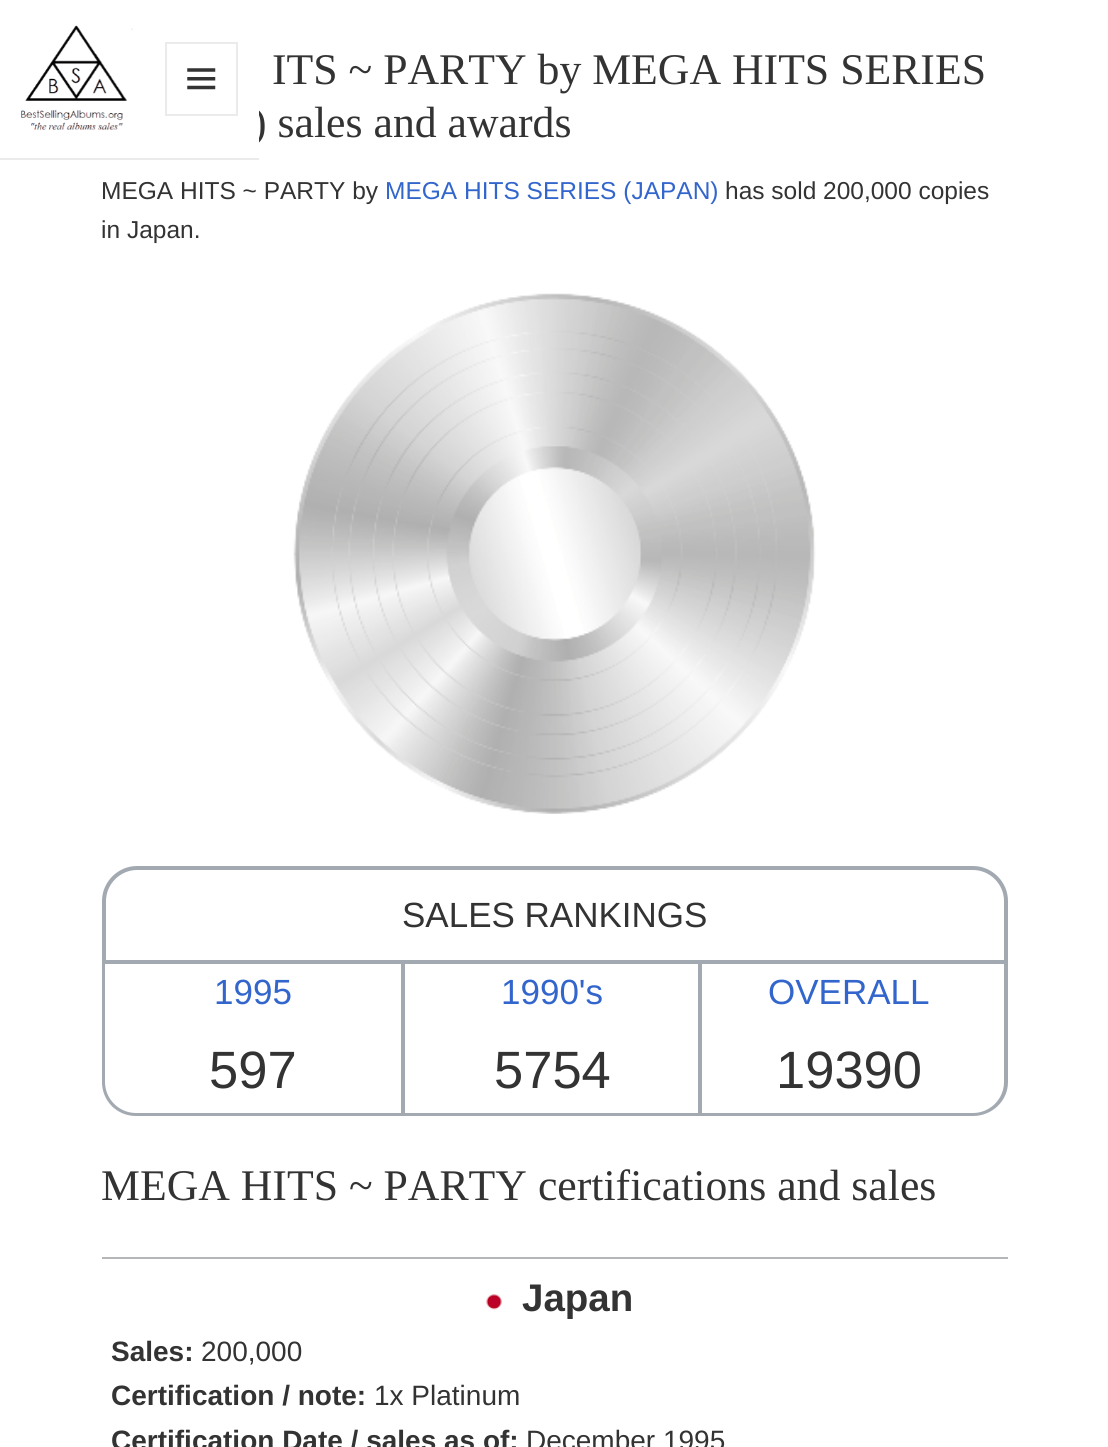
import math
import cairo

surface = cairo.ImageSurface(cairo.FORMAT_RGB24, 1108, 1447)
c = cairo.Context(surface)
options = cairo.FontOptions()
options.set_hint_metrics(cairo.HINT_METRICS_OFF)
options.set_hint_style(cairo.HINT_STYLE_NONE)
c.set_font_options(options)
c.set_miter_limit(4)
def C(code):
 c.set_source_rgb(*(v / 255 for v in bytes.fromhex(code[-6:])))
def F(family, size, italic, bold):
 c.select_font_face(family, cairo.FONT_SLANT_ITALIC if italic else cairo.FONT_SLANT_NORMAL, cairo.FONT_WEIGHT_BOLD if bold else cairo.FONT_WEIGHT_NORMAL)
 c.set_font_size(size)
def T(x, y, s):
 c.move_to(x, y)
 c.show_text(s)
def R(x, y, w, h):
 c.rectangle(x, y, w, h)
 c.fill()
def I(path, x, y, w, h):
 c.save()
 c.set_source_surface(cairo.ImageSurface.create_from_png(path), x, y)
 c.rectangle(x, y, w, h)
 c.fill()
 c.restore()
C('ffffff')
c.paint()
F('Liberation Serif',43.75,0,0)
C('333333')
T(252,137,') sales and awards')
C('ffffff')
R(252,106,7,41)
C('ebebeb')
R(0,158,259,2)
I('1.png',21,25,112,105)
c.rectangle(166,43,71,72)
c.stroke()
I('2.png',187,68,29,22)
C('333333')
T(272,84,'ITS ~ PARTY by MEGA HITS SERIES')
F('Liberation Sans',24.5,0,0)
T(101,199,'MEGA HITS ~ PARTY by')
C('3366cc')
T(385,199,'MEGA HITS SERIES (JAPAN)')
C('333333')
T(725,199,'has sold 200,000 copies')
T(101,238,'in Japan.')
I('3.png',293,293,523,521)
c.new_path()
c.move_to(137,868)
c.line_to(973,868)
c.curve_to(991,868,1006,883,1006,901)
c.line_to(1006,962)
c.line_to(104,962)
c.line_to(104,901)
c.curve_to(104,883,119,868,137,868)
c.close_path()
C('a2a9b1')
c.set_line_width(4)
c.stroke()
F('Liberation Sans',35,0,0)
C('333333')
T(402,927,'SALES RANKINGS')
C('a2a9b1')
c.set_fill_rule(cairo.FILL_RULE_EVEN_ODD)
c.new_path()
c.move_to(102,964)
c.line_to(1008,964)
c.line_to(1008,1082)
c.curve_to(1008,1101,992,1116,973,1116)
c.line_to(136,1116)
c.curve_to(117,1116,102,1101,102,1082)
c.close_path()
c.move_to(105,964)
c.line_to(1004,964)
c.line_to(1004,1082)
c.curve_to(1004,1099,990,1113,973,1113)
c.line_to(136,1113)
c.curve_to(119,1113,105,1099,105,1082)
c.close_path()
c.fill()
C('3366cc')
T(214,1004,'1995')
F('Liberation Sans',52.5,0,0)
C('333333')
T(209,1088,'597')
C('a2a9b1')
R(401,964,4,149)
F('Liberation Sans',35,0,0)
C('3366cc')
T(501,1004,'1990\'s')
F('Liberation Sans',52.5,0,0)
C('333333')
T(494,1088,'5754')
C('a2a9b1')
R(698,964,4,149)
F('Liberation Sans',35,0,0)
C('3366cc')
T(768,1004,'OVERALL')
F('Liberation Sans',52.5,0,0)
C('333333')
T(776,1088,'19390')
F('Liberation Serif',43.75,0,0)
T(101,1200,'MEGA HITS ~ PARTY certifications and sales')
C('b5b6b7')
R(102,1257,906,2)
I('4.png',486,1294,16,16)
F('Liberation Sans',38.5,0,1)
C('333333')
T(522,1311,'Japan')
F('Liberation Sans',28,0,1)
T(111,1361,'Sales:')
F('Liberation Sans',28,0,0)
T(201,1361,'200,000')
F('Liberation Sans',28,0,1)
T(111,1405,'Certification / note:')
F('Liberation Sans',28,0,0)
T(374,1405,'1x Platinum')
F('Liberation Sans',28,0,1)
T(111,1450,'Certification Date / sales as of:')
F('Liberation Sans',28,0,0)
T(526,1450,'December 1995')
surface.write_to_png('o.png')
